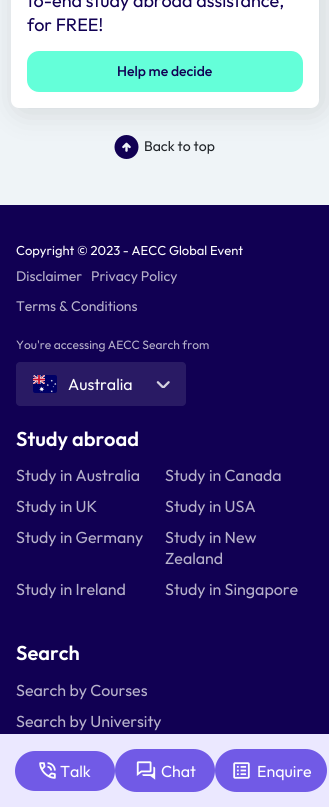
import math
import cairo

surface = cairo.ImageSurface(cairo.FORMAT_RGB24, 329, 807)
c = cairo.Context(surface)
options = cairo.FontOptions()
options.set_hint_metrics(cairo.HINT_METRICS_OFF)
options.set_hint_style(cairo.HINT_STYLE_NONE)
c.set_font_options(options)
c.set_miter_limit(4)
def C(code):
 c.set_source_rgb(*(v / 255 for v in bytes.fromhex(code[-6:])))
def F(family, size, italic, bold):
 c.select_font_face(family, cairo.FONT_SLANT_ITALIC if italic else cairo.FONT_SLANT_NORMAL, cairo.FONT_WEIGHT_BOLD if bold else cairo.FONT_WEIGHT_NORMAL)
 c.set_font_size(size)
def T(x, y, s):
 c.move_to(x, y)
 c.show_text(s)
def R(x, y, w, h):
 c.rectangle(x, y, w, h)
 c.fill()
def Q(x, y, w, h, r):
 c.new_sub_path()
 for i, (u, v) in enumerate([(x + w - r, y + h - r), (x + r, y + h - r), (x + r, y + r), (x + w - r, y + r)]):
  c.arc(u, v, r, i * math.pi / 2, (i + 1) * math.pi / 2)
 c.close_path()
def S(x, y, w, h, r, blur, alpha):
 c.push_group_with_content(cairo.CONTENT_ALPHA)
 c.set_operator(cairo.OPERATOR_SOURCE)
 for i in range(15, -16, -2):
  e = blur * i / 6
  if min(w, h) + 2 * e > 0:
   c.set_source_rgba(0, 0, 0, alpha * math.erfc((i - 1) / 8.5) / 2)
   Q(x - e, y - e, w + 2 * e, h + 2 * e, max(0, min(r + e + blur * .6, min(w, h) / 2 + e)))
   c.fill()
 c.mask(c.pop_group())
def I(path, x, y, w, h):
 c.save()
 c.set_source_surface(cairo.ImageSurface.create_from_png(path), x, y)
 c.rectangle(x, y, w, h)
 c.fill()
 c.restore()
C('eff4f7')
c.paint()
C('000000')
S(15,-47,308,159,8,16,.12)
C('ffffff')
Q(11,-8,308,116,8)
c.fill()
F('Outfit',18,0,0)
C('110053')
T(27,7,'to-end study abroad assistance,')
T(27,31,'for FREE!')
C('64ffd9')
Q(27,51,276,41,12)
c.fill()
F('Outfit Medium',14,0,0)
C('110053')
T(117,76,'Help me decide')
I('1.png',114,135,25,24)
F('Outfit',14,0,0)
C('212529')
T(144,151,'Back to top')
C('110053')
R(0,205,329,529)
F('Outfit',13,0,0)
C('ffffff')
T(16,255,'Copyright © 2023 - AECC Global Event')
F('Outfit',14,0,0)
C('b7b2cb')
T(16,281,'Disclaimer')
T(91,281,'Privacy Policy')
T(16,311,'Terms & Conditions')
F('Outfit',12,0,0)
T(16,349,'You\'re accessing AECC Search from')
C('291a64')
Q(16,362,170,44,4)
c.fill()
I('2.png',33,375,24,18)
F('Outfit',16,0,0)
C('ffffff')
T(68,390,'Australia')
I('3.png',156,381,14,7)
F('Outfit SemiBold',20,0,0)
T(16,446,'Study abroad')
F('Outfit',16,0,0)
C('b7b2cb')
T(16,481,'Study in Australia')
T(165,481,'Study in Canada')
T(16,512,'Study in UK')
T(165,512,'Study in USA')
T(16,543,'Study in Germany')
T(165,543,'Study in New')
T(165,564,'Zealand')
T(16,595,'Study in Ireland')
T(165,595,'Study in Singapore')
F('Outfit SemiBold',20,0,0)
C('ffffff')
T(16,660,'Search')
F('Outfit',16,0,0)
C('b7b2cb')
T(16,696,'Search by Courses')
T(16,727,'Search by University')
C('ebe8ff')
R(0,734,329,73)
C('715ae6')
Q(15,751,100,40,20)
c.fill()
I('4.png',39,762,17,17)
C('ffffff')
T(60,777,'Talk')
C('715ae6')
Q(115,749,100,43,21.5)
c.fill()
I('5.png',136,761,20,19)
C('ffffff')
T(161,777,'Chat')
C('715ae6')
Q(215,749,112,43,21.5)
c.fill()
I('6.png',233,762,17,17)
C('ffffff')
T(257,777,'Enquire')
surface.write_to_png('o.png')
